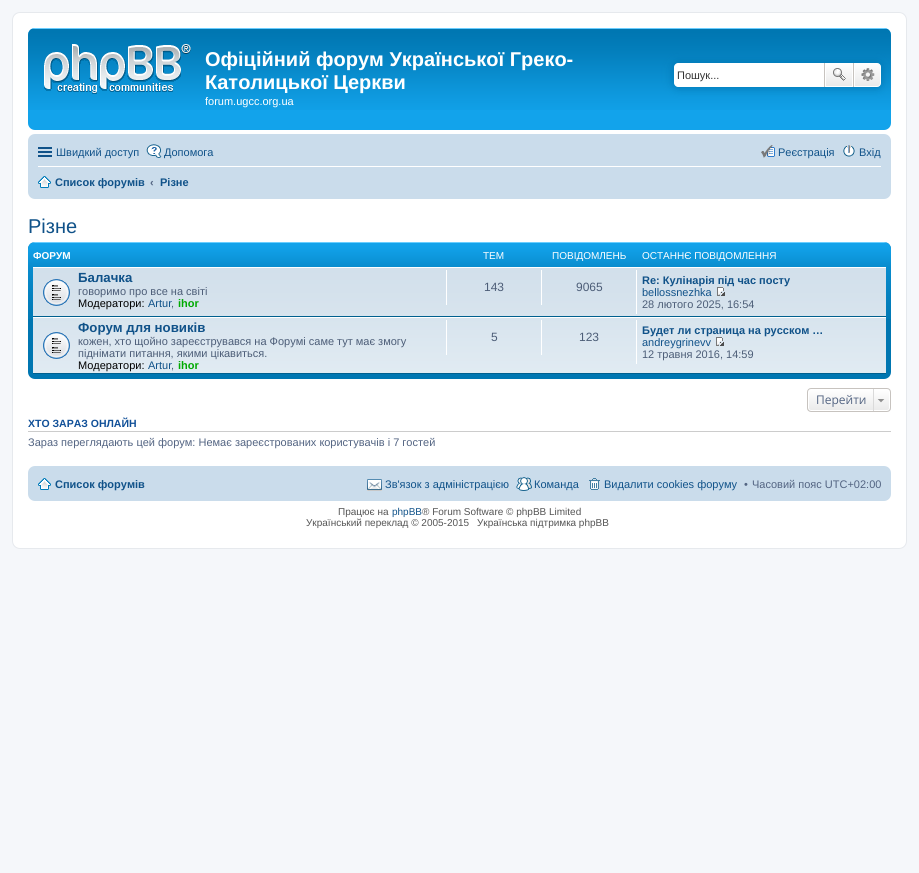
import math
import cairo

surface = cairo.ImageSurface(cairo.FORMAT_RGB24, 919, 873)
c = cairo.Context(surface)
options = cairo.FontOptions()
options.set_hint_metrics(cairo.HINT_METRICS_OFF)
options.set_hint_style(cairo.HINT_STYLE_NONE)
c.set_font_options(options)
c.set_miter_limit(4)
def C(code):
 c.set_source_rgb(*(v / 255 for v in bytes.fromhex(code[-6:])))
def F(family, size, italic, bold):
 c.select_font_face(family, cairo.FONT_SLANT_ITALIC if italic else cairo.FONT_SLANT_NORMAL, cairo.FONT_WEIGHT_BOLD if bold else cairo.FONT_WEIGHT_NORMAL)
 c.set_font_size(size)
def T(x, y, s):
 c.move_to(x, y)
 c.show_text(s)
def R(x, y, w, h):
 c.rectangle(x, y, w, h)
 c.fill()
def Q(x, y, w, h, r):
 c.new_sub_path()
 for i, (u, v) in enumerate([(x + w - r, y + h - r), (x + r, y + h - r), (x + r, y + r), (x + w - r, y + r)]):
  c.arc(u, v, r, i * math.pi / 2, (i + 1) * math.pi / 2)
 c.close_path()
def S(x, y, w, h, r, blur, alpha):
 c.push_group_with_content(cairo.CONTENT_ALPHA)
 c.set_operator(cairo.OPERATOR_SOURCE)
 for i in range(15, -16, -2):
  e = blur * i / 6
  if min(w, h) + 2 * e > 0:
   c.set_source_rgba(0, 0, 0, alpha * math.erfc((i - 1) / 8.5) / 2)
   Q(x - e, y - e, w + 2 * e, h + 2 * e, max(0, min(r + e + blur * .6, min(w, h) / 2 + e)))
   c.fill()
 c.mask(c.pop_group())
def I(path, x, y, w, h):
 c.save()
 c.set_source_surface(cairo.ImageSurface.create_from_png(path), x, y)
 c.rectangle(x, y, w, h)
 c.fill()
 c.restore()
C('f5f7fa')
c.paint()
C('ffffff')
Q(12.5,12.5,894,536,7.5)
c.fill_preserve()
C('e6e9ed')
c.set_line_width(1)
c.stroke()
C('12a3eb')
Q(28,28,863,102,7)
c.fill()
I('1.png',28,28,863,82)
I('2.png',44,44,147,50)
F('Liberation Sans',20,0,1)
C('ffffff')
T(205,66,'Офіційний форум Української Греко-')
T(205,89,'Католицької Церкви')
F('Liberation Sans',11,0,0)
T(205,105,'forum.ugcc.org.ua')
C('0075b0')
S(674,63,207,24,4,5,1)
C('ffffff')
c.new_path()
c.move_to(678,63)
c.line_to(824,63)
c.line_to(824,87)
c.line_to(678,87)
c.curve_to(676,87,674,85,674,83)
c.line_to(674,67)
c.curve_to(674,65,676,63,678,63)
c.close_path()
c.fill()
C('333333')
T(677,79,'Пошук...')
gradient = cairo.LinearGradient(839,63,839,87)
gradient.add_color_stop_rgba(0,1,1,1,1)
gradient.add_color_stop_rgba(1,0.914,0.914,0.914,1)
c.set_source(gradient)
R(826,64,26,22)
c.rectangle(825.5,63.5,27,23)
C('ffffff')
c.stroke()
C('c7c3bf')
R(853,63,1,24)
R(824,63,1,24)
I('3.png',833,68,13,13)
gradient = cairo.LinearGradient(868,63,868,87)
gradient.add_color_stop_rgba(0,1,1,1,1)
gradient.add_color_stop_rgba(1,0.914,0.914,0.914,1)
c.set_source(gradient)
c.new_path()
c.move_to(854.5,63.5)
c.line_to(877,63.5)
c.curve_to(879,63.5,880.5,65,880.5,67)
c.line_to(880.5,83)
c.curve_to(880.5,85,879,86.5,877,86.5)
c.line_to(854.5,86.5)
c.close_path()
c.fill_preserve()
C('ffffff')
c.stroke()
I('4.png',861,68,14,13)
C('cadceb')
Q(28,134,863,65,7)
c.fill()
C('105289')
R(38,147,14,2)
R(38,151,14,2)
R(38,155,14,2)
T(56,156,'Швидкий доступ')
I('5.png',146,144,16,14)
T(164,156,'Допомога')
I('6.png',761,145,14,13)
T(778,156,'Реєстрація')
I('7.png',843,145,12,12)
T(859,156,'Вхід')
C('ffffff')
R(38,166,843,1)
I('8.png',38,176,13,12)
F('Liberation Sans',11,0,1)
C('105289')
T(55,186,'Список форумів')
C('536482')
T(150,186,'‹')
C('105289')
T(160,186,'Різне')
F('Liberation Sans',20,0,0)
T(28,233,'Різне')
C('0076b1')
Q(28,242,863,137,7)
c.fill()
I('9.png',28,242,863,77)
F('Liberation Sans',10,0,1)
C('ffffff')
T(33,259,'ФОРУМ')
F('Liberation Sans',10,0,0)
T(483,259,'ТЕМ')
T(552,259,'ПОВІДОМЛЕНЬ')
T(642,259,'ОСТАННЄ ПОВІДОМЛЕННЯ')
I('10.png',33,268,853,105)
R(33,267,853,1)
C('00608f')
R(33,316,853,1)
I('11.png',43,279,27,27)
F('Liberation Sans',13.25,0,1)
C('105289')
T(78,282,'Балачка')
F('Liberation Sans',11,0,0)
C('4c5d77')
T(78,295,'говоримо про все на світі')
C('000000')
T(78,307,'Модератори:')
C('105289')
T(148,307,'Artur')
C('4c5d77')
T(171,307,',')
F('Liberation Sans',11,0,1)
C('00aa00')
T(178,307,'ihor')
C('ffffff')
R(446,270,1,35)
F('Liberation Sans',12,0,0)
C('4c5d77')
T(484,291,'143')
C('ffffff')
R(541,270,1,35)
C('4c5d77')
T(576,291,'9065')
C('ffffff')
R(636,270,1,44)
F('Liberation Sans',11,0,1)
C('105289')
T(642,284,'Re: Кулінарія під час посту')
F('Liberation Sans',11,0,0)
T(642,296,'bellossnezhka')
I('12.png',717,287,8,9)
C('4c5d77')
T(642,308,'28 лютого 2025, 16:54')
C('ffffff')
R(33,317,853,1)
C('00608f')
R(33,373,853,1)
I('13.png',43,332,27,27)
F('Liberation Sans',13.25,0,1)
C('105289')
T(78,332,'Форум для новиків')
F('Liberation Sans',11,0,0)
C('4c5d77')
T(78,345,'кожен, хто щойно зареєструвався на Форумі саме тут має змогу')
T(78,357,'піднімати питання, якими цікавиться.')
C('000000')
T(78,369,'Модератори:')
C('105289')
T(148,369,'Artur')
C('4c5d77')
T(171,369,',')
F('Liberation Sans',11,0,1)
C('00aa00')
T(178,369,'ihor')
C('ffffff')
R(446,320,1,35)
F('Liberation Sans',12,0,0)
C('4c5d77')
T(491,341,'5')
C('ffffff')
R(541,320,1,35)
C('4c5d77')
T(579,341,'123')
C('ffffff')
R(636,320,1,44)
F('Liberation Sans',11,0,1)
C('105289')
T(642,334,'Будет ли страница на русском …')
F('Liberation Sans',11,0,0)
T(642,346,'andreygrinevv')
I('14.png',716,337,8,9)
C('4c5d77')
T(642,358,'12 травня 2016, 14:59')
c.save()
Q(807,388,84,24,4)
c.clip()
gradient = cairo.LinearGradient(849,389,849,411)
gradient.add_color_stop_rgba(0,1,1,1,1)
gradient.add_color_stop_rgba(1,0.914,0.914,0.914,1)
c.set_source(gradient)
R(807,389,84,22)
c.restore()
Q(808.5,389.5,81,21,2.5)
C('ffffff')
c.stroke()
Q(807.5,388.5,83,23,3.5)
C('c7c3bf')
c.stroke()
F('Open Sans',12,0,0)
C('536482')
T(816,404,'Перейти')
I('15.png',877,399,8,4)
C('dadada')
R(873,389,1,22)
C('cccccc')
R(28,431,863,1)
F('Liberation Sans',10.5,0,1)
C('115098')
T(28,427,'ХТО ЗАРАЗ ОНЛАЙН')
F('Liberation Sans',11,0,0)
C('536482')
T(28,446,'Зараз переглядають цей форум: Немає зареєстрованих користувачів і 7 гостей')
C('cadceb')
Q(28,466,863,35,7)
c.fill()
I('8.png',38,478,13,12)
F('Liberation Sans',11,0,1)
C('105289')
T(55,488,'Список форумів')
I('16.png',367,479,15,12)
F('Liberation Sans',11,0,0)
T(385,488,'Зв\'язок з адміністрацією')
I('17.png',516,477,16,14)
T(534,488,'Команда')
I('18.png',589,478,11,12)
T(604,488,'Видалити cookies форуму')
C('536482')
T(744,488,'•')
T(752,488,'Часовий пояс UTC+02:00')
F('Liberation Sans',10,0,0)
C('555555')
T(338,515,'Працює на')
C('105289')
T(392,515,'phpBB')
C('555555')
T(422,515,'® Forum Software © phpBB Limited')
T(306,526,'Український переклад © 2005-2015')
T(477,526,'Українська підтримка phpBB')
surface.write_to_png('o.png')
